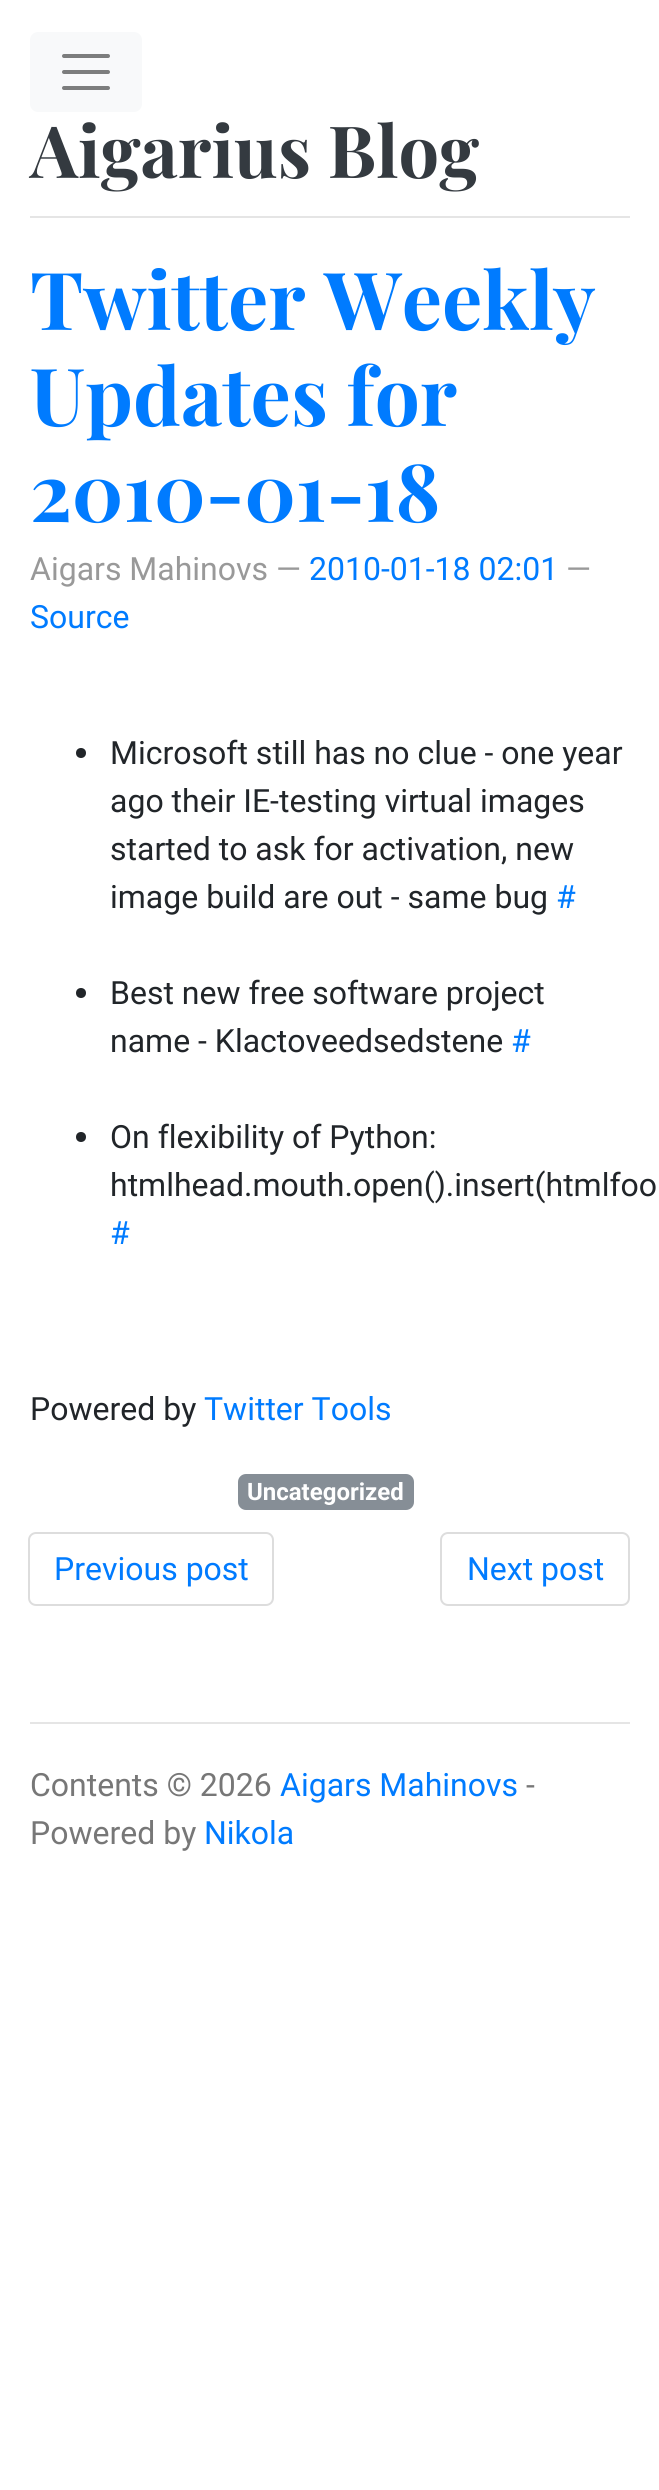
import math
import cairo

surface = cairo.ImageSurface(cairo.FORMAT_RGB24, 659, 2490)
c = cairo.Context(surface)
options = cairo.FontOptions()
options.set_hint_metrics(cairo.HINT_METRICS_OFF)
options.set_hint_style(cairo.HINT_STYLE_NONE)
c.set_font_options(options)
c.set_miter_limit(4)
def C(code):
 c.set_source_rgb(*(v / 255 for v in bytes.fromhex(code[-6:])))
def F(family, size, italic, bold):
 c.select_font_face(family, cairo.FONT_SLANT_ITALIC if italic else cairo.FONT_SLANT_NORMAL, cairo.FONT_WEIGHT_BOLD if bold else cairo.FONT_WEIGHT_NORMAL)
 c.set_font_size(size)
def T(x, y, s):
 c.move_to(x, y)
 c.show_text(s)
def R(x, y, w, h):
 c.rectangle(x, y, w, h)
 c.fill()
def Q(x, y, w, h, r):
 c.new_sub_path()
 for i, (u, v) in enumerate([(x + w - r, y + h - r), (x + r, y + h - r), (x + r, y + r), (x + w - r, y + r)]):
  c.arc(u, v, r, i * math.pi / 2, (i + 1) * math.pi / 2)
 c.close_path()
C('ffffff')
c.paint()
C('e5e5e5')
R(30,216,600,2)
C('f8f9fa')
Q(30,32,112,80,8)
c.fill()
c.new_path()
c.move_to(64,56)
c.line_to(108,56)
c.move_to(64,72)
c.line_to(108,72)
c.move_to(64,88)
c.line_to(108,88)
C('7c7d7d')
c.set_line_width(4)
c.set_line_cap(cairo.LINE_CAP_ROUND)
c.stroke()
F('Playfair Display',72,0,1)
C('343a40')
T(30,178,'Aigarius Blog')
F('Playfair Display',80,0,1)
C('007bff')
T(30,330,'Twitter Weekly')
T(30,426,'Updates for')
T(30,522,'2010-01-18')
F('Roboto',32,0,0)
C('999999')
T(30,580,'Aigars Mahinovs —')
C('007bff')
T(309,580,'2010-01-18 02:01')
C('999999')
T(566,580,'—')
C('007bff')
T(30,628,'Source')
C('212529')
c.new_path()
c.arc(81,753,5,0,2 * math.pi)
c.fill()
T(110,764,'Microsoft still has no clue - one year')
T(110,812,'ago their IE-testing virtual images')
T(110,860,'started to ask for activation, new')
T(110,908,'image build are out - same bug')
C('007bff')
T(556,908,'#')
C('212529')
c.new_path()
c.arc(81,993,5,0,2 * math.pi)
c.fill()
T(110,1004,'Best new free software project')
T(110,1052,'name - Klactoveedsedstene')
C('007bff')
T(511,1052,'#')
C('212529')
c.new_path()
c.arc(81,1137,5,0,2 * math.pi)
c.fill()
T(110,1148,'On flexibility of Python:')
T(110,1196,'htmlhead.mouth.open().insert(htmlfoo')
C('007bff')
T(110,1244,'#')
C('212529')
T(30,1420,'Powered by')
C('007bff')
T(204,1420,'Twitter Tools')
C('868e96')
Q(238,1474,176,36,8)
c.fill()
F('Roboto',24,0,1)
C('ffffff')
T(247,1500,'Uncategorized')
Q(29,1533,244,72,7)
C('dddddd')
c.set_line_width(2)
c.set_line_cap(cairo.LINE_CAP_BUTT)
c.stroke()
F('Roboto',32,0,0)
C('007bff')
T(54,1580,'Previous post')
Q(441,1533,188,72,7)
C('dddddd')
c.stroke()
C('007bff')
T(467,1580,'Next post')
C('e5e5e5')
R(30,1722,600,2)
C('777777')
T(30,1796,'Contents © 2026')
C('007bff')
T(280,1796,'Aigars Mahinovs')
C('777777')
T(526,1796,'-')
T(30,1844,'Powered by')
C('007bff')
T(204,1844,'Nikola')
surface.write_to_png('o.png')
